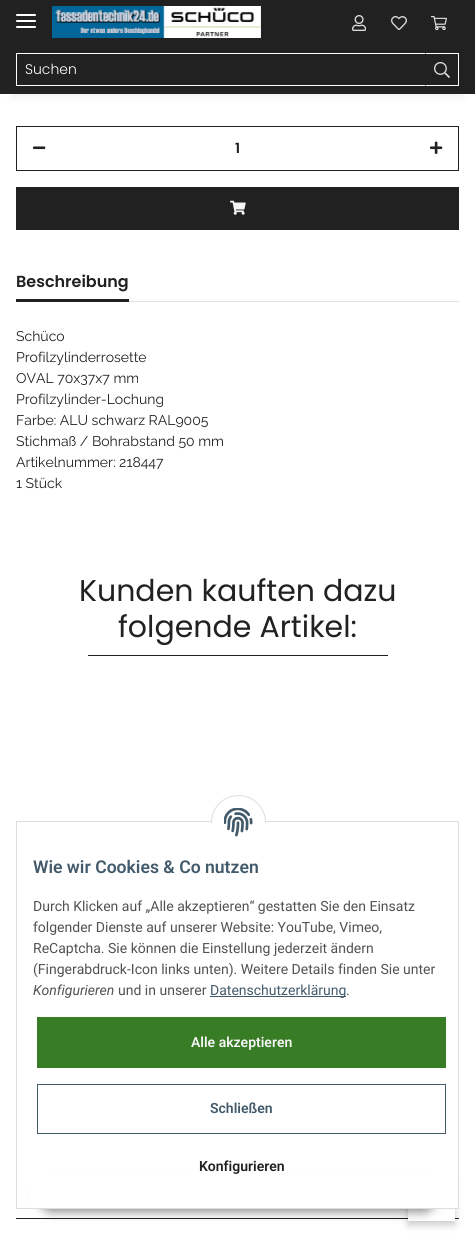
import math
import cairo

surface = cairo.ImageSurface(cairo.FORMAT_RGB24, 475, 1241)
c = cairo.Context(surface)
options = cairo.FontOptions()
options.set_hint_metrics(cairo.HINT_METRICS_OFF)
options.set_hint_style(cairo.HINT_STYLE_NONE)
c.set_font_options(options)
c.set_miter_limit(4)
def C(code):
 c.set_source_rgb(*(v / 255 for v in bytes.fromhex(code[-6:])))
def F(family, size, italic, bold):
 c.select_font_face(family, cairo.FONT_SLANT_ITALIC if italic else cairo.FONT_SLANT_NORMAL, cairo.FONT_WEIGHT_BOLD if bold else cairo.FONT_WEIGHT_NORMAL)
 c.set_font_size(size)
def T(x, y, s):
 c.move_to(x, y)
 c.show_text(s)
def R(x, y, w, h):
 c.rectangle(x, y, w, h)
 c.fill()
def Q(x, y, w, h, r):
 c.new_sub_path()
 for i, (u, v) in enumerate([(x + w - r, y + h - r), (x + r, y + h - r), (x + r, y + r), (x + w - r, y + r)]):
  c.arc(u, v, r, i * math.pi / 2, (i + 1) * math.pi / 2)
 c.close_path()
def S(x, y, w, h, r, blur, alpha):
 c.push_group_with_content(cairo.CONTENT_ALPHA)
 c.set_operator(cairo.OPERATOR_SOURCE)
 for i in range(15, -16, -2):
  e = blur * i / 6
  if min(w, h) + 2 * e > 0:
   c.set_source_rgba(0, 0, 0, alpha * math.erfc((i - 1) / 8.5) / 2)
   Q(x - e, y - e, w + 2 * e, h + 2 * e, max(0, min(r + e + blur * .6, min(w, h) / 2 + e)))
   c.fill()
 c.mask(c.pop_group())
def I(path, x, y, w, h):
 c.save()
 c.set_source_surface(cairo.ImageSurface.create_from_png(path), x, y)
 c.rectangle(x, y, w, h)
 c.fill()
 c.restore()
C('ffffff')
c.paint()
C('000000')
S(12,28,451,70,0,4.5,.06)
C('212121')
R(0,0,475,94)
C('ffffff')
Q(16,20,20,2,1)
c.fill()
Q(16,14,20,2,1)
c.fill()
Q(16,26,20,2,1)
c.fill()
I('1.png',52,6,209,32)
I('2.png',352,15,14,16)
I('3.png',391,16,16,14)
I('4.png',431,16,16,14)
c.rectangle(16.5,53.5,409,32)
c.set_line_width(1)
c.stroke()
F('Poppins Light',14,0,0)
T(25,74,'Suchen')
C('212121')
R(425,53,1,33)
C('ffffff')
c.new_path()
c.move_to(425,53)
c.line_to(459,53)
c.line_to(458,54)
c.line_to(426,54)
c.close_path()
c.fill()
R(458,53,1,33)
c.new_path()
c.move_to(459,86)
c.line_to(425,86)
c.line_to(426,85)
c.line_to(458,85)
c.close_path()
c.fill()
I('5.png',434,62,16,16)
c.rectangle(16.5,126.5,442,44)
C('212121')
c.stroke()
I('6.png',33,146,13,4)
F('Poppins SemiBold',14,0,0)
T(235,153,'1')
I('7.png',430,141,13,13)
R(16,187,443,43)
I('8.png',230,200,16,15)
C('dee2e6')
R(129,301,330,1)
F('Poppins SemiBold',16,0,0)
C('212121')
T(16,287,'Beschreibung')
R(16,299,113,3)
F('Raleway',14,0,0)
T(16,341,'Schüco')
T(16,362,'Profilzylinderrosette')
T(16,383,'OVAL 70x37x7 mm')
T(16,404,'Profilzylinder-Lochung')
T(16,425,'Farbe: ALU schwarz RAL9005')
T(16,446,'Stichmaß / Bohrabstand 50 mm')
T(16,467,'Artikelnummer: 218447')
T(16,488,'1 Stück')
F('Poppins',30,0,0)
T(79,601,'Kunden kauften dazu')
T(118,637,'folgende Artikel:')
R(88,655,300,1)
R(16,1218,443,1)
C('000000')
S(408,1181,47,44,0,4,.2)
C('ffffff')
R(408,1209,47,12)
C('000000')
S(39,1180,397,32,16,5,.45)
C('ffffff')
R(30,1170,428,38)
c.rectangle(16.5,821.5,442,387)
C('dddddd')
c.stroke()
C('ffffff')
c.arc(238.5,822.5,27,0,2 * math.pi)
c.fill_preserve()
C('dddddd')
c.stroke()
C('ffffff')
R(211,823,55,27)
I('9.png',224,808,29,29)
F('Roboto SemiBold',17.6,0,0)
C('435a6b')
T(33,873,'Wie wir Cookies & Co nutzen')
F('Roboto',14,0,0)
C('525252')
T(33,911,'Durch Klicken auf „Alle akzeptieren“ gestatten Sie den Einsatz')
T(33,932,'folgender Dienste auf unserer Website: YouTube, Vimeo,')
T(33,953,'ReCaptcha. Sie können die Einstellung jederzeit ändern')
T(33,974,'(Fingerabdruck-Icon links unten). Weitere Details finden Sie unter')
F('Roboto',14,1,0)
T(33,995,'Konfigurieren')
F('Roboto',14,0,0)
T(118,995,'und in unserer')
C('435a6b')
R(210,996,136,1)
T(210,995,'Datenschutzerklärung')
C('525252')
T(346,995,'.')
C('397c26')
R(37,1017,409,51)
F('Roboto SemiBold',14,0,0)
C('f5f5f5')
T(191,1047,'Alle akzeptieren')
c.rectangle(37.5,1084.5,408,49)
C('435a6b')
c.stroke()
T(210,1113,'Schließen')
C('212121')
T(199,1171,'Konfigurieren')
surface.write_to_png('o.png')
